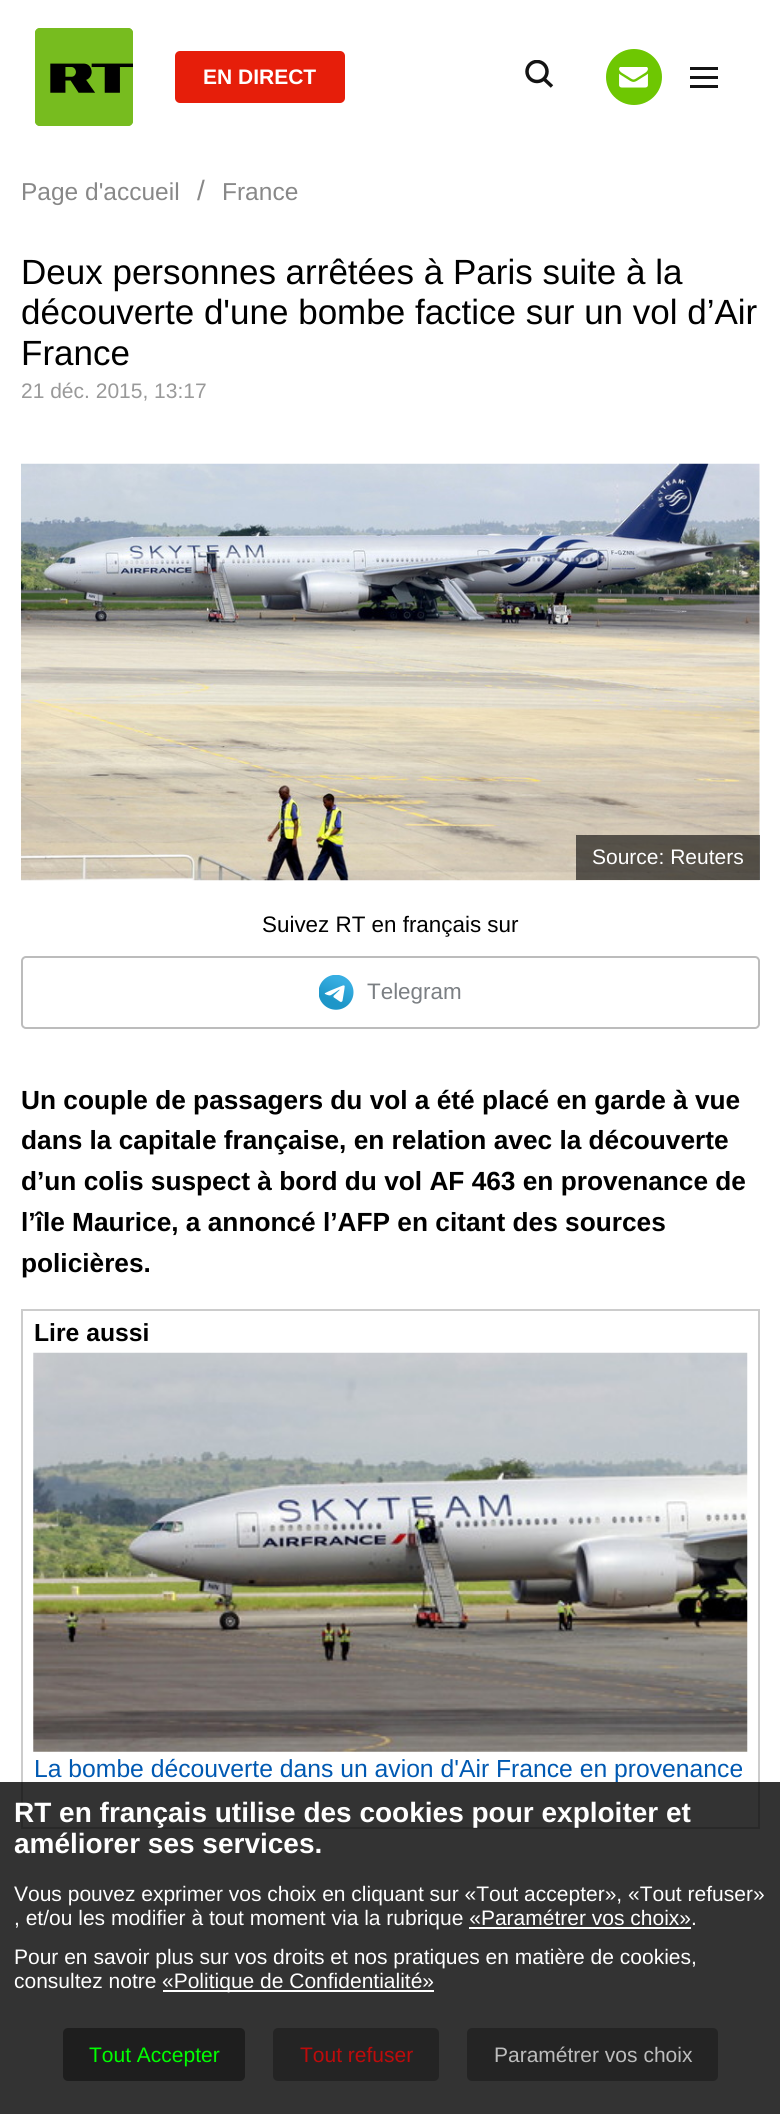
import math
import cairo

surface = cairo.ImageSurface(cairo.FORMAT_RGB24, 780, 2114)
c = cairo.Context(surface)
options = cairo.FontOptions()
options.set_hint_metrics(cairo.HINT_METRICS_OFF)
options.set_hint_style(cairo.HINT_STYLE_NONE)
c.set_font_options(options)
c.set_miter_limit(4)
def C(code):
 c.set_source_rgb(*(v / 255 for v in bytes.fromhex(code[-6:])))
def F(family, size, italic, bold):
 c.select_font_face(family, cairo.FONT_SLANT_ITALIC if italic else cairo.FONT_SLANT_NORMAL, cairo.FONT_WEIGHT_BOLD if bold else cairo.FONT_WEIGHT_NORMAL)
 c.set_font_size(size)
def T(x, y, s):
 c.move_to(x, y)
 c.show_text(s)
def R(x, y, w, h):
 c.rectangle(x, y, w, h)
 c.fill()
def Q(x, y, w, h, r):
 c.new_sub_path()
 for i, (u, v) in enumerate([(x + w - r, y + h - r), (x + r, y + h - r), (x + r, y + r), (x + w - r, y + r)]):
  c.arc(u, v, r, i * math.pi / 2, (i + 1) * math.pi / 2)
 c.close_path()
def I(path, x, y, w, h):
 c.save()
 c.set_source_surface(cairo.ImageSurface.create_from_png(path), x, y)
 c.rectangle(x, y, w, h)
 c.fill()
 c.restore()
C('ffffff')
c.paint()
I('1.png',35,28,98,98)
C('e61e0a')
Q(175,51,170,52,5)
c.fill()
F('Liberation Sans',21,0,1)
C('ffffff')
T(203,84,'EN DIRECT')
c.save()
c.rectangle(525,60,28,28)
c.clip()
c.arc(537,71.5,10,0,2 * math.pi)
C('141414')
c.set_line_width(3.5)
c.stroke()
c.restore()
c.new_path()
c.move_to(544,79)
c.line_to(552,86.5)
C('141414')
c.set_line_width(3.5)
c.stroke()
C('6ec702')
c.arc(634,77,28,0,2 * math.pi)
c.fill()
I('2.png',619,67,29,21)
C('141414')
R(690,67,28,3)
R(690,76,28,3)
R(690,85,28,3)
F('Liberation Sans',24.5,0,0)
C('888888')
T(21,200,'Page d\'accueil')
F('Liberation Sans',28,0,0)
T(197,200,'/')
F('Liberation Sans',24.5,0,0)
T(222,200,'France')
F('Liberation Sans',35,0,0)
C('000000')
T(21,284,'Deux personnes arrêtées à Paris suite à la')
T(21,324,'découverte d\'une bombe factice sur un vol d’Air')
T(21,365,'France')
F('Liberation Sans',21,0,0)
C('999999')
T(21,398,'21 déc. 2015, 13:17')
I('3.png',21,463,739,418)
c.set_source_rgba(0,0,0,0.6)
R(576,835,184,45)
C('ffffff')
T(592,864,'Source: Reuters')
F('Liberation Sans',22.4,0,0)
C('000000')
T(262,932,'Suivez RT en français sur')
Q(22,957,737,71,4)
C('bcbcbc')
c.set_line_width(2)
c.stroke()
I('4.png',319,975,35,35)
C('7b7f83')
T(367,999,'Telegram')
F('Liberation Sans',26.25,0,1)
C('000000')
T(21,1109,'Un couple de passagers du vol a été placé en garde à vue')
T(21,1149,'dans la capitale française, en relation avec la découverte')
T(21,1190,'d’un colis suspect à bord du vol AF 463 en provenance de')
T(21,1231,'l’île Maurice, a annoncé l’AFP en citant des sources')
T(21,1272,'policières.')
c.rectangle(22,1310,737,518)
C('cccccc')
c.stroke()
F('Liberation Sans',24.7,0,1)
C('000000')
T(34,1341,'Lire aussi')
I('5.png',33,1352,715,400)
F('Liberation Sans',24.7,0,0)
C('0059b2')
T(34,1777,'La bombe découverte dans un avion d\'Air France en provenance')
c.set_source_rgba(0,0,0,0.8)
R(0,1782,780,332)
F('Liberation Sans',28,0,1)
C('ffffff')
T(14,1822,'RT en français utilise des cookies pour exploiter et')
T(14,1853,'améliorer ses services.')
F('Liberation Sans',21,0,0)
T(14,1901,'Vous pouvez exprimer vos choix en cliquant sur «Tout accepter», «Tout refuser»')
T(14,1925,', et/ou les modifier à tout moment via la rubrique «Paramétrer vos choix».')
R(469,1927,222,2)
T(14,1964,'Pour en savoir plus sur vos droits et nos pratiques en matière de cookies,')
T(14,1988,'consultez notre')
R(163,1990,271,2)
T(162,1988,'«Politique de Confidentialité»')
C('1e1e1e')
Q(63,2028,182,53,5)
c.fill()
C('00ff00')
T(89,2062,'Tout Accepter')
c.set_source_rgba(0.118,0.118,0.118,0.7)
Q(273,2028,166,53,5)
c.fill()
C('bd0b0b')
T(300,2062,'Tout refuser')
c.set_source_rgba(0.118,0.118,0.118,0.7)
Q(467,2028,251,53,5)
c.fill()
C('bdbdbd')
T(494,2062,'Paramétrer vos choix')
surface.write_to_png('o.png')
